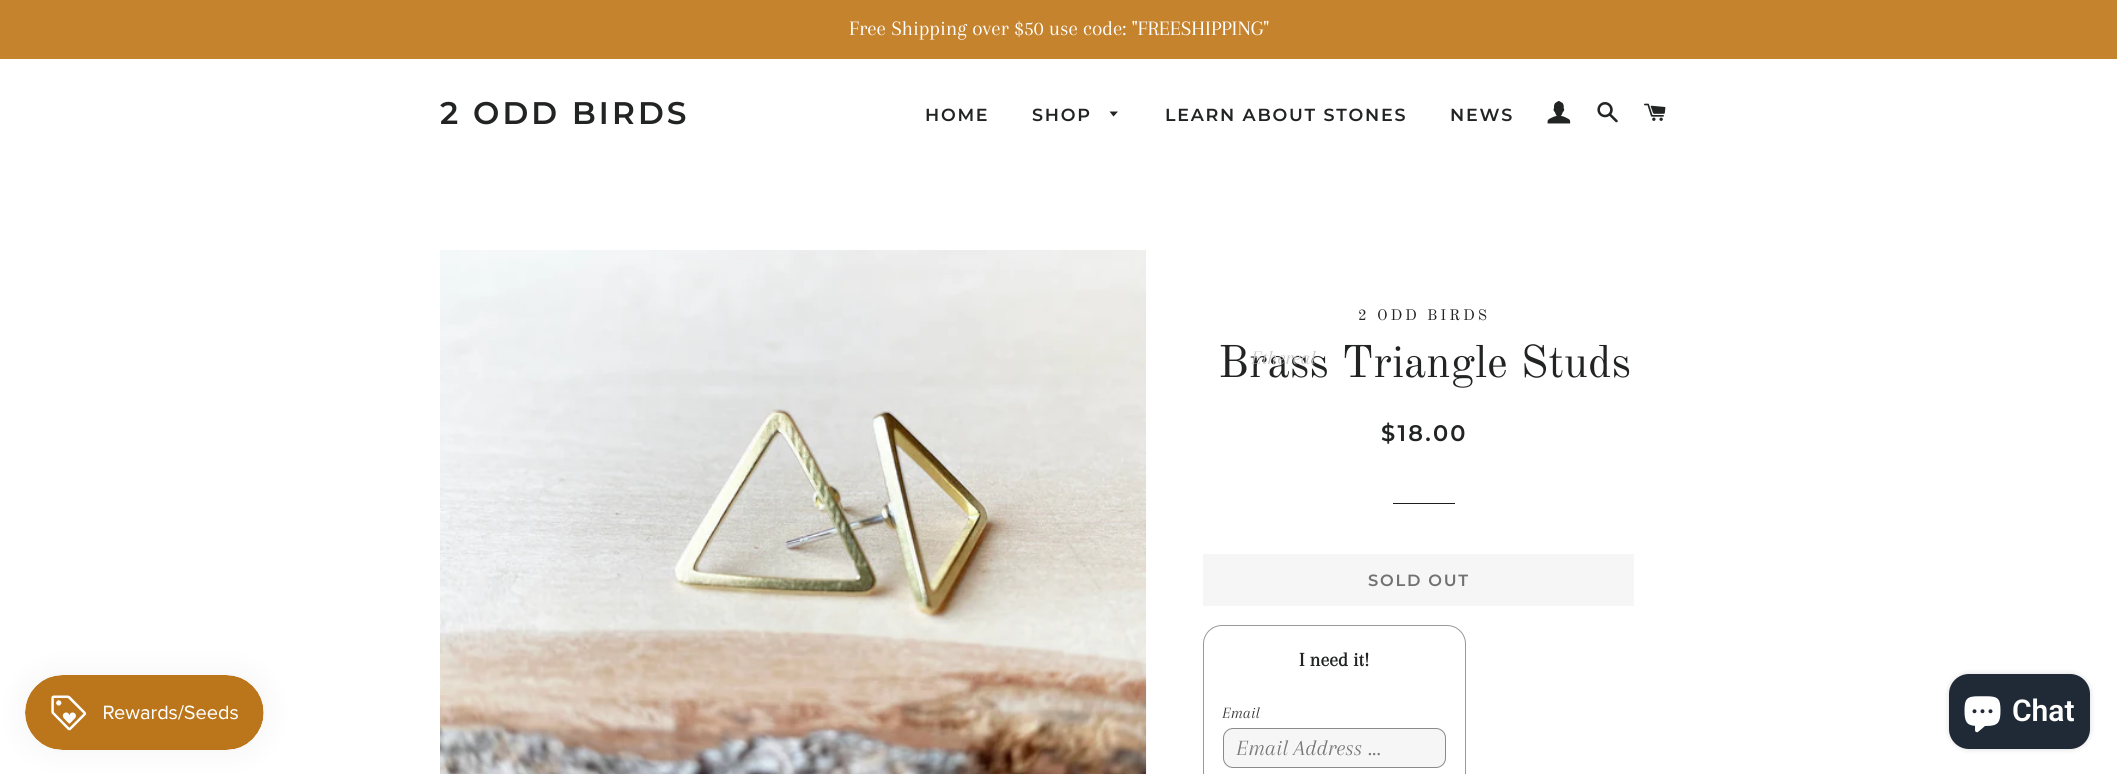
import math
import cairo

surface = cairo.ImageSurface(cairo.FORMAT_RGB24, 2117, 774)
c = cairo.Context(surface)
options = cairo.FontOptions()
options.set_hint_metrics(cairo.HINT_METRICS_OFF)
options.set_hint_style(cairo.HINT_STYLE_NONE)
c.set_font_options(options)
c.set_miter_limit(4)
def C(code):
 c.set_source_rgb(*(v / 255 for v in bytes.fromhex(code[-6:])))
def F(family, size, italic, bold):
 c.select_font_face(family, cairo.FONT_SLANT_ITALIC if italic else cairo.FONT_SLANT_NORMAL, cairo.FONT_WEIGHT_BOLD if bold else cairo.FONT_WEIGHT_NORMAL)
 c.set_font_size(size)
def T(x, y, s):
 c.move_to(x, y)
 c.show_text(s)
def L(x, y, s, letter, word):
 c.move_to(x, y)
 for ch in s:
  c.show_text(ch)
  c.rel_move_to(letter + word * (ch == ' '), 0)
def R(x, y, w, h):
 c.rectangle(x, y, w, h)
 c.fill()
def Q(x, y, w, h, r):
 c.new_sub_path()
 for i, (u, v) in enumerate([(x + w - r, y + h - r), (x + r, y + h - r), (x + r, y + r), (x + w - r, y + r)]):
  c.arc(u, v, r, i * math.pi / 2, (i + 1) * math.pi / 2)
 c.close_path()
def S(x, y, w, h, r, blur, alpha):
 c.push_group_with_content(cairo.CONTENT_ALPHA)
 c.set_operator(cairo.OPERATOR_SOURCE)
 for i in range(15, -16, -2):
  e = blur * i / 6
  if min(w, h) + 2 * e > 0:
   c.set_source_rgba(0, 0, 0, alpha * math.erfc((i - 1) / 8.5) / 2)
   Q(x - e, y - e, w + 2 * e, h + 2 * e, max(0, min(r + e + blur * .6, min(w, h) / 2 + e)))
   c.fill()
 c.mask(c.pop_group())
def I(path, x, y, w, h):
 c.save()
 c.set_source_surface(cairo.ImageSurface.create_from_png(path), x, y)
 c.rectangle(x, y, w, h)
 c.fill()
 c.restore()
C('ffffff')
c.paint()
C('c6832d')
R(0,0,2117,59)
F('Arapey',21.25,0,0)
C('ffffff')
T(849,35,'Free Shipping over $50 use code: "FREESHIPPING"')
F('Montserrat SemiBold',31.25,0,0)
C('222323')
L(440,124,'2 ODD BIRDS',3.1,0)
F('Montserrat SemiBold',17.5,0,0)
L(925,121,'HOME',1.75,0)
L(1032,121,'SHOP',1.75,0)
c.new_path()
c.move_to(1109.5,111.5)
c.line_to(1113.5,116.5)
c.line_to(1118,111.5)
c.close_path()
c.fill()
F('Old Standard TT',45,0,0)
T(1218,377,'Brass Triangle Studs')
F('Arapey',20,1,0)
C('c7c7c7')
T(1251,364,'Ethereal')
I('1.png',1547,101,24,23)
I('2.png',1597,102,21,21)
I('3.png',1644,103,22,18)
F('Montserrat SemiBold',17.5,0,0)
C('222323')
L(1165,121,'LEARN ABOUT STONES',1.75,0)
L(1450,121,'NEWS',1.75,0)
C('000000')
S(25,675,239,75,37.5,15.5,.05)
I('4.png',25,675,239,75)
I('5.png',440,250,707,524)
F('Old Standard TT',15,0,0)
C('222323')
L(1358,320,'2 ODD BIRDS',3,0)
F('Montserrat SemiBold',22.5,0,0)
L(1381,441,'$18.00',2.25,0)
C('1c1d1d')
R(1393,503,62,1)
C('f6f6f6')
R(1203,554,431,52)
F('Montserrat SemiBold',16.25,0,0)
C('717171')
L(1368,586,'SOLD OUT',1.75,0)
Q(1203.5,625.5,262,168,18.5)
C('999999')
c.set_line_width(1)
c.stroke()
F('Arapey',20,0,1)
C('222323')
T(1299,666,'I need it!')
F('Arapey',16.25,1,0)
C('303030')
T(1222,718,'Email')
C('f6f6f6')
Q(1223.5,728.5,222,39,9.5)
c.fill_preserve()
C('8a8a8a')
c.stroke()
F('Arapey',22.5,1,0)
C('777777')
T(1236,755,'Email Address ...')
C('000000')
S(1949,674,141,75,20,3,.15)
C('202a36')
Q(1949,674,141,75,20)
c.fill()
I('6.png',1964,696,37,37)
F('Roboto SemiBold',30,0,0)
C('ffffff')
T(2012,721,'Chat')
surface.write_to_png('o.png')
